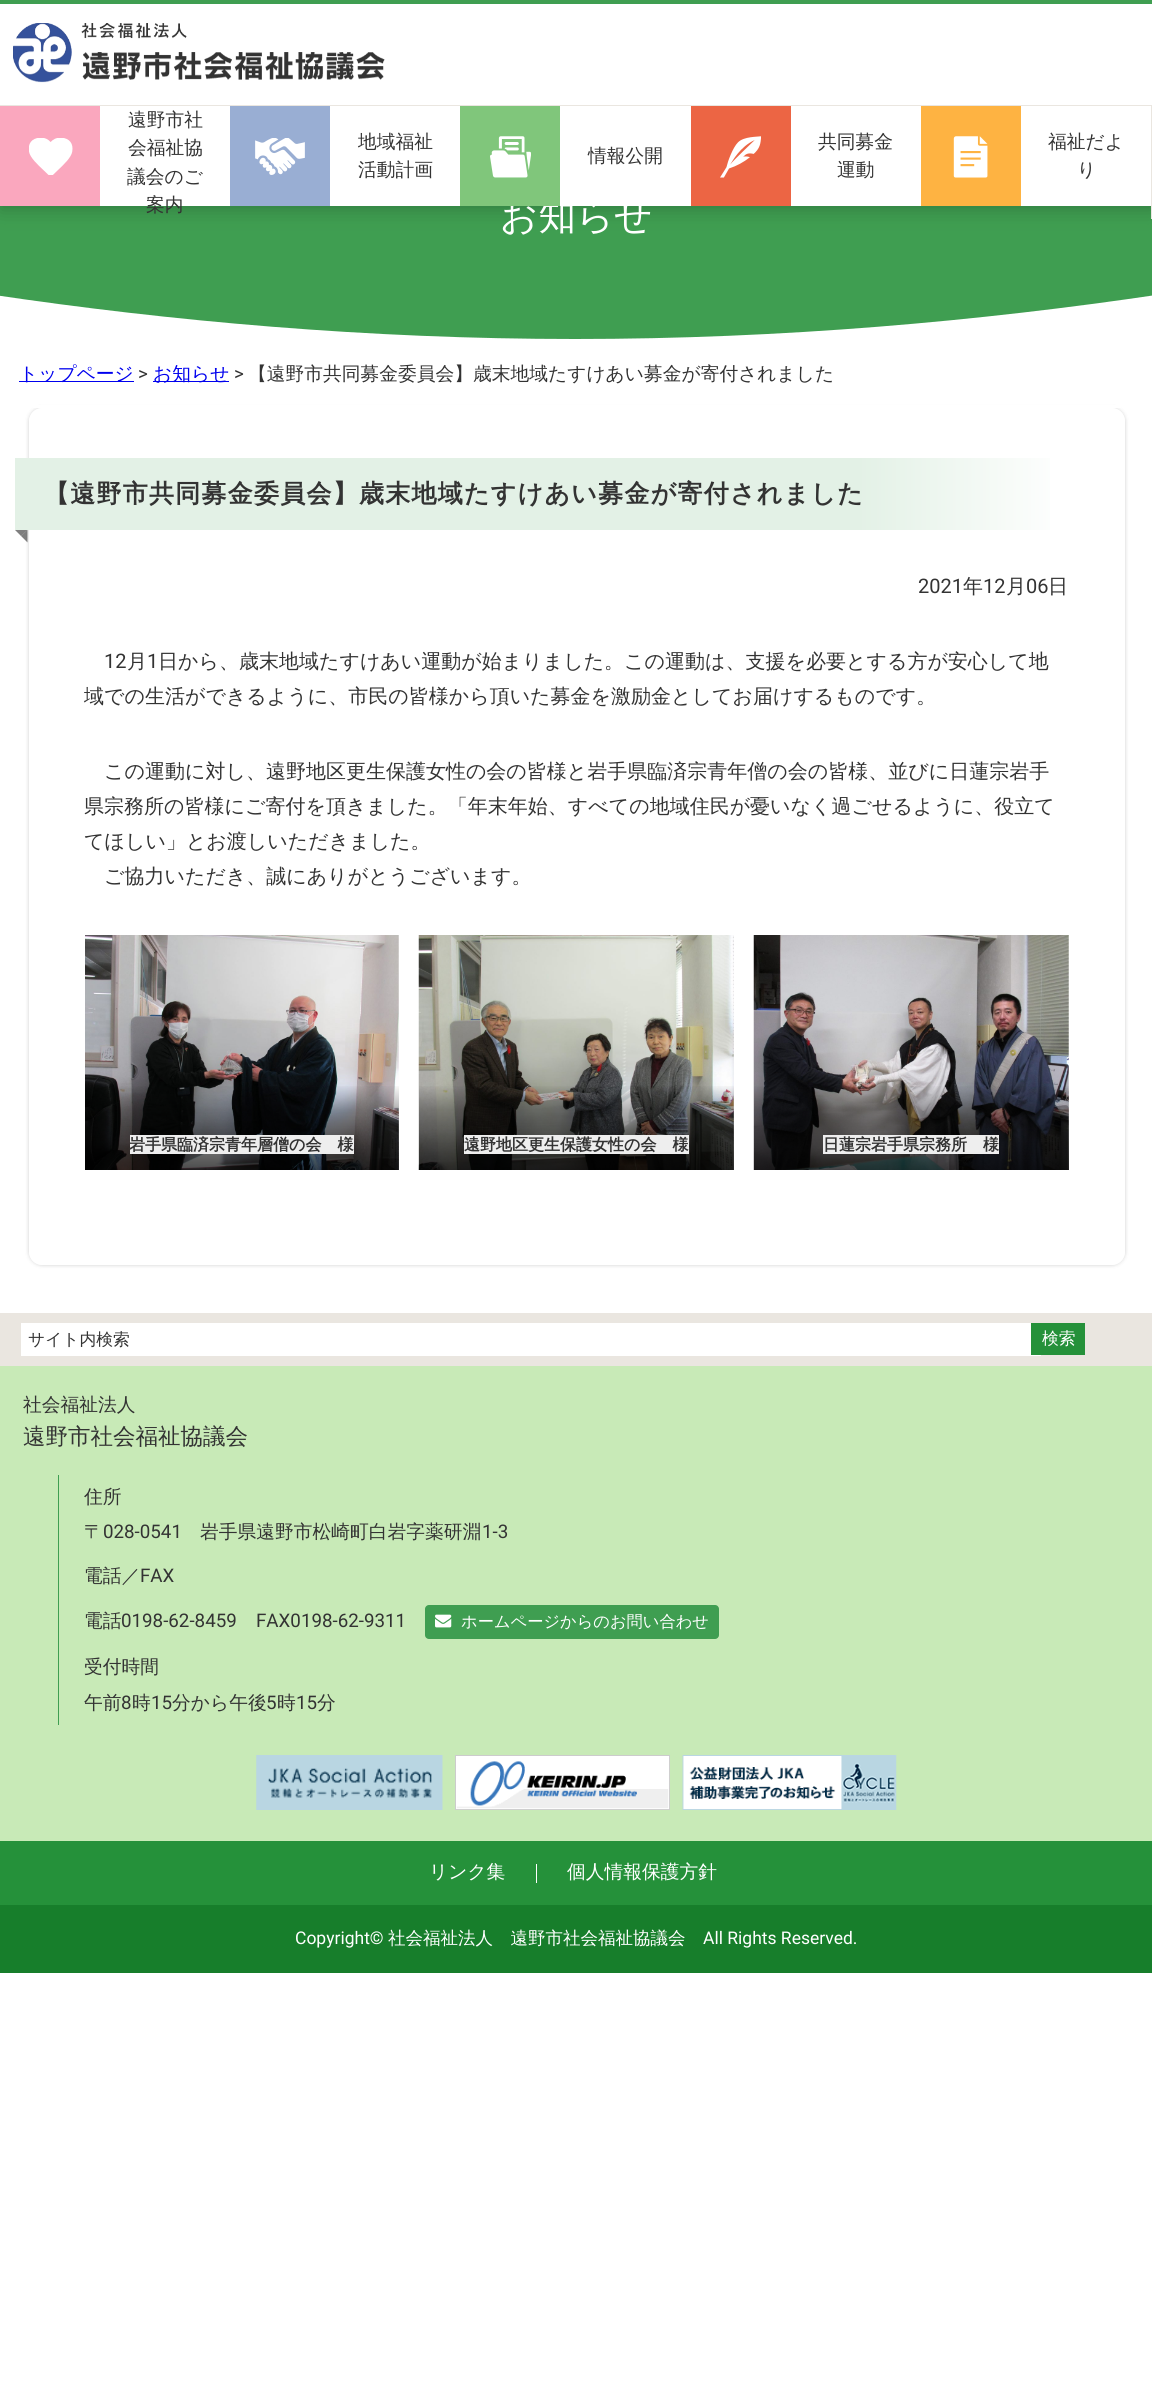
import math
import cairo

surface = cairo.ImageSurface(cairo.FORMAT_RGB24, 1152, 2400)
c = cairo.Context(surface)
options = cairo.FontOptions()
options.set_hint_metrics(cairo.HINT_METRICS_OFF)
options.set_hint_style(cairo.HINT_STYLE_NONE)
c.set_font_options(options)
c.set_miter_limit(4)
def C(code):
 c.set_source_rgb(*(v / 255 for v in bytes.fromhex(code[-6:])))
def F(family, size, italic, bold):
 c.select_font_face(family, cairo.FONT_SLANT_ITALIC if italic else cairo.FONT_SLANT_NORMAL, cairo.FONT_WEIGHT_BOLD if bold else cairo.FONT_WEIGHT_NORMAL)
 c.set_font_size(size)
def T(x, y, s):
 c.move_to(x, y)
 c.show_text(s)
def L(x, y, s, letter, word):
 c.move_to(x, y)
 for ch in s:
  c.show_text(ch)
  c.rel_move_to(letter + word * (ch == ' '), 0)
def R(x, y, w, h):
 c.rectangle(x, y, w, h)
 c.fill()
def Q(x, y, w, h, r):
 c.new_sub_path()
 for i, (u, v) in enumerate([(x + w - r, y + h - r), (x + r, y + h - r), (x + r, y + r), (x + w - r, y + r)]):
  c.arc(u, v, r, i * math.pi / 2, (i + 1) * math.pi / 2)
 c.close_path()
def S(x, y, w, h, r, blur, alpha):
 c.push_group_with_content(cairo.CONTENT_ALPHA)
 c.set_operator(cairo.OPERATOR_SOURCE)
 for i in range(15, -16, -2):
  e = blur * i / 6
  if min(w, h) + 2 * e > 0:
   c.set_source_rgba(0, 0, 0, alpha * math.erfc((i - 1) / 8.5) / 2)
   Q(x - e, y - e, w + 2 * e, h + 2 * e, max(0, min(r + e + blur * .6, min(w, h) / 2 + e)))
   c.fill()
 c.mask(c.pop_group())
def I(path, x, y, w, h):
 c.save()
 c.set_source_surface(cairo.ImageSurface.create_from_png(path), x, y)
 c.rectangle(x, y, w, h)
 c.fill()
 c.restore()
C('ffffff')
c.paint()
C('3f9e51')
R(0,206,1152,133)
C('000000')
S(0,4,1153,206,0,9.5,.2)
C('ffffff')
R(0,4,1152,202)
C('3f9e51')
R(0,0,1152,4)
C('eae6e0')
R(0,105,1152,1)
I('1.png',13,23,372,60)
C('faa7be')
R(0,106,100,100)
I('2.png',29,138,44,37)
F('WenQuanYi Zen Hei Medium',18.75,0,0)
C('333333')
T(128,126,'遠野市社')
T(128,154,'会福祉協')
T(127,183,'議会のご')
T(146,211,'案内')
C('99aed3')
R(230,106,100,100)
I('3.png',255,138,50,37)
C('333333')
T(358,148,'地域福祉')
T(358,176,'活動計画')
F('WenQuanYi Zen Hei Medium',37.5,0,0)
C('ffffff')
T(500,229,'お知らせ')
C('80c67b')
R(460,106,100,100)
I('4.png',490,136,41,42)
F('WenQuanYi Zen Hei Medium',18.75,0,0)
C('333333')
T(588,162,'情報公開')
C('ec6544')
R(691,106,100,100)
I('5.png',720,136,41,42)
C('333333')
T(818,148,'共同募金')
T(837,176,'運動')
C('eae6e0')
R(1151,106,1,113)
C('feb342')
R(921,106,100,100)
I('6.png',953,136,35,42)
C('333333')
T(1048,148,'福祉だよ')
T(1077,176,'り')
c.save()
c.rectangle(0,98,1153,250)
c.clip()
C('ffffff')
c.new_path()
c.move_to(-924,54)
c.curve_to(-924,54,-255,339,575,339)
c.curve_to(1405,339,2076,54,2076,54)
c.line_to(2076,416)
c.line_to(-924,416)
c.close_path()
c.fill()
c.restore()
c.save()
c.set_fill_rule(cairo.FILL_RULE_EVEN_ODD)
c.new_path()
c.move_to(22,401)
c.line_to(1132,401)
c.line_to(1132,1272)
c.line_to(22,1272)
c.close_path()
c.move_to(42,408)
c.line_to(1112,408)
c.curve_to(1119,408,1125,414,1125,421)
c.line_to(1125,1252)
c.curve_to(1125,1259,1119,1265,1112,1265)
c.line_to(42,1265)
c.curve_to(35,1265,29,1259,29,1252)
c.line_to(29,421)
c.curve_to(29,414,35,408,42,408)
c.close_path()
c.clip()
C('000000')
S(29,408,1096,857,13,2,.2)
c.restore()
C('ffffff')
R(33,405,1088,3)
C('0000ee')
R(19,381,115,1)
T(19,380,'トップページ')
F('Roboto',18.75,0,0)
C('333333')
T(138,380,'>')
C('0000ee')
R(153,381,76,1)
F('WenQuanYi Zen Hei Medium',18.75,0,0)
T(153,380,'お知らせ')
F('Roboto',18.75,0,0)
C('333333')
T(234,380,'>')
F('WenQuanYi Zen Hei Medium',18.75,0,0)
T(248,380,'【遠野市共同募金委員会】歳末地域たすけあい募金が寄付されました')
gradient = cairo.LinearGradient(15,494,1069,494)
gradient.add_color_stop_rgba(.8,0.89,0.945,0.902,1)
gradient.add_color_stop_rgba(1,1,1,1,1)
c.set_source(gradient)
R(15,458,1035,72)
F('WenQuanYi Zen Hei',25,0,1)
C('333333')
L(44,502,'【遠野市共同募金委員会】歳末地域たすけあい募金が寄付されました',1.25,0)
c.set_source_rgba(0,0,0,0.5)
c.new_path()
c.move_to(15,530)
c.line_to(27.5,530)
c.line_to(21,536)
c.close_path()
c.fill()
c.new_path()
c.move_to(27.5,530)
c.line_to(27.5,542.5)
c.line_to(21,536)
c.close_path()
c.fill()
F('Roboto',20,0,0)
C('333333')
T(918,593,'2021')
F('WenQuanYi Zen Hei Medium',20,0,0)
T(963,593,'年')
F('Roboto',20,0,0)
T(983,593,'12')
F('WenQuanYi Zen Hei Medium',20,0,0)
T(1006,593,'月')
F('Roboto',20,0,0)
T(1026,593,'06')
F('WenQuanYi Zen Hei Medium',20,0,0)
T(1048,593,'日')
F('Roboto',20,0,0)
T(104,668,'12')
F('WenQuanYi Zen Hei Medium',20,0,0)
T(127,668,'月')
F('Roboto',20,0,0)
T(147,668,'1')
F('WenQuanYi Zen Hei Medium',20,0,0)
T(158,668,'日から、歳末地域たすけあい運動が始まりました。この運動は、支援を必要とする方が安心して地')
T(84,703,'域での生活ができるように、市民の皆様から頂いた募金を激励金としてお届けするものです。')
T(104,778,'この運動に対し、遠野地区更生保護女性の会の皆様と岩手県臨済宗青年僧の会の皆様、並びに日蓮宗岩手')
T(84,813,'県宗務所の皆様にご寄付を頂きました。「年末年始、すべての地域住民が憂いなく過ごせるように、役立て')
T(84,848,'てほしい」とお渡しいただきました。')
T(104,883,'ご協力いただき、誠にありがとうございます。')
I('7.png',85,935,314,235)
gradient = cairo.LinearGradient(242,1170,242,1084)
gradient.add_color_stop_rgba(0,0,0,0,.7)
gradient.add_color_stop_rgba(.7,0,0,0,.3)
gradient.add_color_stop_rgba(1,0,0,0,0)
c.set_source(gradient)
R(85,1086,314,84)
C('eeeeee')
R(130,1135,224,19)
F('WenQuanYi Zen Hei',16,0,1)
C('333333')
T(129,1150,'岩手県臨済宗青年層僧の会　様')
I('8.png',418,935,316,235)
gradient = cairo.LinearGradient(576,1170,576,1084)
gradient.add_color_stop_rgba(0,0,0,0,.7)
gradient.add_color_stop_rgba(.7,0,0,0,.3)
gradient.add_color_stop_rgba(1,0,0,0,0)
c.set_source(gradient)
R(419,1086,315,84)
C('eeeeee')
R(464,1135,225,19)
C('333333')
T(464,1150,'遠野地区更生保護女性の会　様')
I('9.png',753,935,316,235)
gradient = cairo.LinearGradient(911,1170,911,1084)
gradient.add_color_stop_rgba(0,0,0,0,.7)
gradient.add_color_stop_rgba(.7,0,0,0,.3)
gradient.add_color_stop_rgba(1,0,0,0,0)
c.set_source(gradient)
R(754,1086,315,84)
C('eeeeee')
R(823,1135,176,19)
C('333333')
T(823,1150,'日蓮宗岩手県宗務所　様')
C('eae6e0')
R(0,1313,1152,53)
C('ffffff')
R(21,1323,1020,33)
F('WenQuanYi Zen Hei Medium',16.75,0,0)
C('333333')
T(28,1345,'サイト内検索')
C('25913a')
R(1031,1323,54,32)
C('ffffff')
T(1042,1344,'検索')
C('c8eab7')
R(0,1366,1152,475)
F('WenQuanYi Zen Hei Medium',18.75,0,0)
C('333333')
T(23,1411,'社会福祉法人')
F('WenQuanYi Zen Hei Medium',22.5,0,0)
T(23,1444,'遠野市社会福祉協議会')
C('3f9e51')
R(58,1475,1,250)
F('WenQuanYi Zen Hei Medium',18.75,0,0)
C('333333')
T(84,1503,'住所')
T(84,1538,'〒')
F('Roboto',18.75,0,0)
T(103,1538,'028-0541')
F('WenQuanYi Zen Hei Medium',18.75,0,0)
T(200,1538,'岩手県遠野市松崎町白岩字薬研淵')
F('Roboto',18.75,0,0)
T(482,1538,'1-3')
F('WenQuanYi Zen Hei Medium',18.75,0,0)
T(84,1582,'電話／')
F('Roboto',18.75,0,0)
T(140,1582,'FAX')
F('WenQuanYi Zen Hei Medium',18.75,0,0)
T(84,1627,'電話')
F('Roboto',18.75,0,0)
T(121,1627,'0198-62-8459')
T(256,1627,'FAX0198-62-9311')
C('3f9e51')
Q(425,1605,294,34,4)
c.fill()
I('10.png',435,1614,17,14)
F('WenQuanYi Zen Hei Medium',16.25,0,0)
C('ffffff')
T(461,1627,'ホームページからのお問い合わせ')
F('WenQuanYi Zen Hei Medium',18.75,0,0)
C('333333')
T(84,1673,'受付時間')
T(84,1709,'午前')
F('Roboto',18.75,0,0)
T(121,1709,'8')
F('WenQuanYi Zen Hei Medium',18.75,0,0)
T(132,1709,'時')
F('Roboto',18.75,0,0)
T(151,1709,'15')
F('WenQuanYi Zen Hei Medium',18.75,0,0)
T(172,1709,'分から午後')
F('Roboto',18.75,0,0)
T(266,1709,'5')
F('WenQuanYi Zen Hei Medium',18.75,0,0)
T(277,1709,'時')
F('Roboto',18.75,0,0)
T(296,1709,'15')
F('WenQuanYi Zen Hei Medium',18.75,0,0)
T(317,1709,'分')
I('11.png',256,1755,187,55)
I('12.png',455,1755,215,55)
I('13.png',682,1755,215,55)
C('25913a')
R(0,1841,1152,64)
C('ffffff')
R(536,1864,1,19)
T(429,1878,'リンク集')
T(567,1878,'個人情報保護方針')
C('177e2b')
R(0,1905,1152,68)
F('Roboto',17.5,0,0)
C('ffffff')
T(295,1944,'Copyright©')
F('WenQuanYi Zen Hei Medium',17.5,0,0)
T(388,1944,'社会福祉法人　遠野市社会福祉協議会')
F('Roboto',17.5,0,0)
T(703,1944,'All Rights Reserved.')
surface.write_to_png('o.png')
